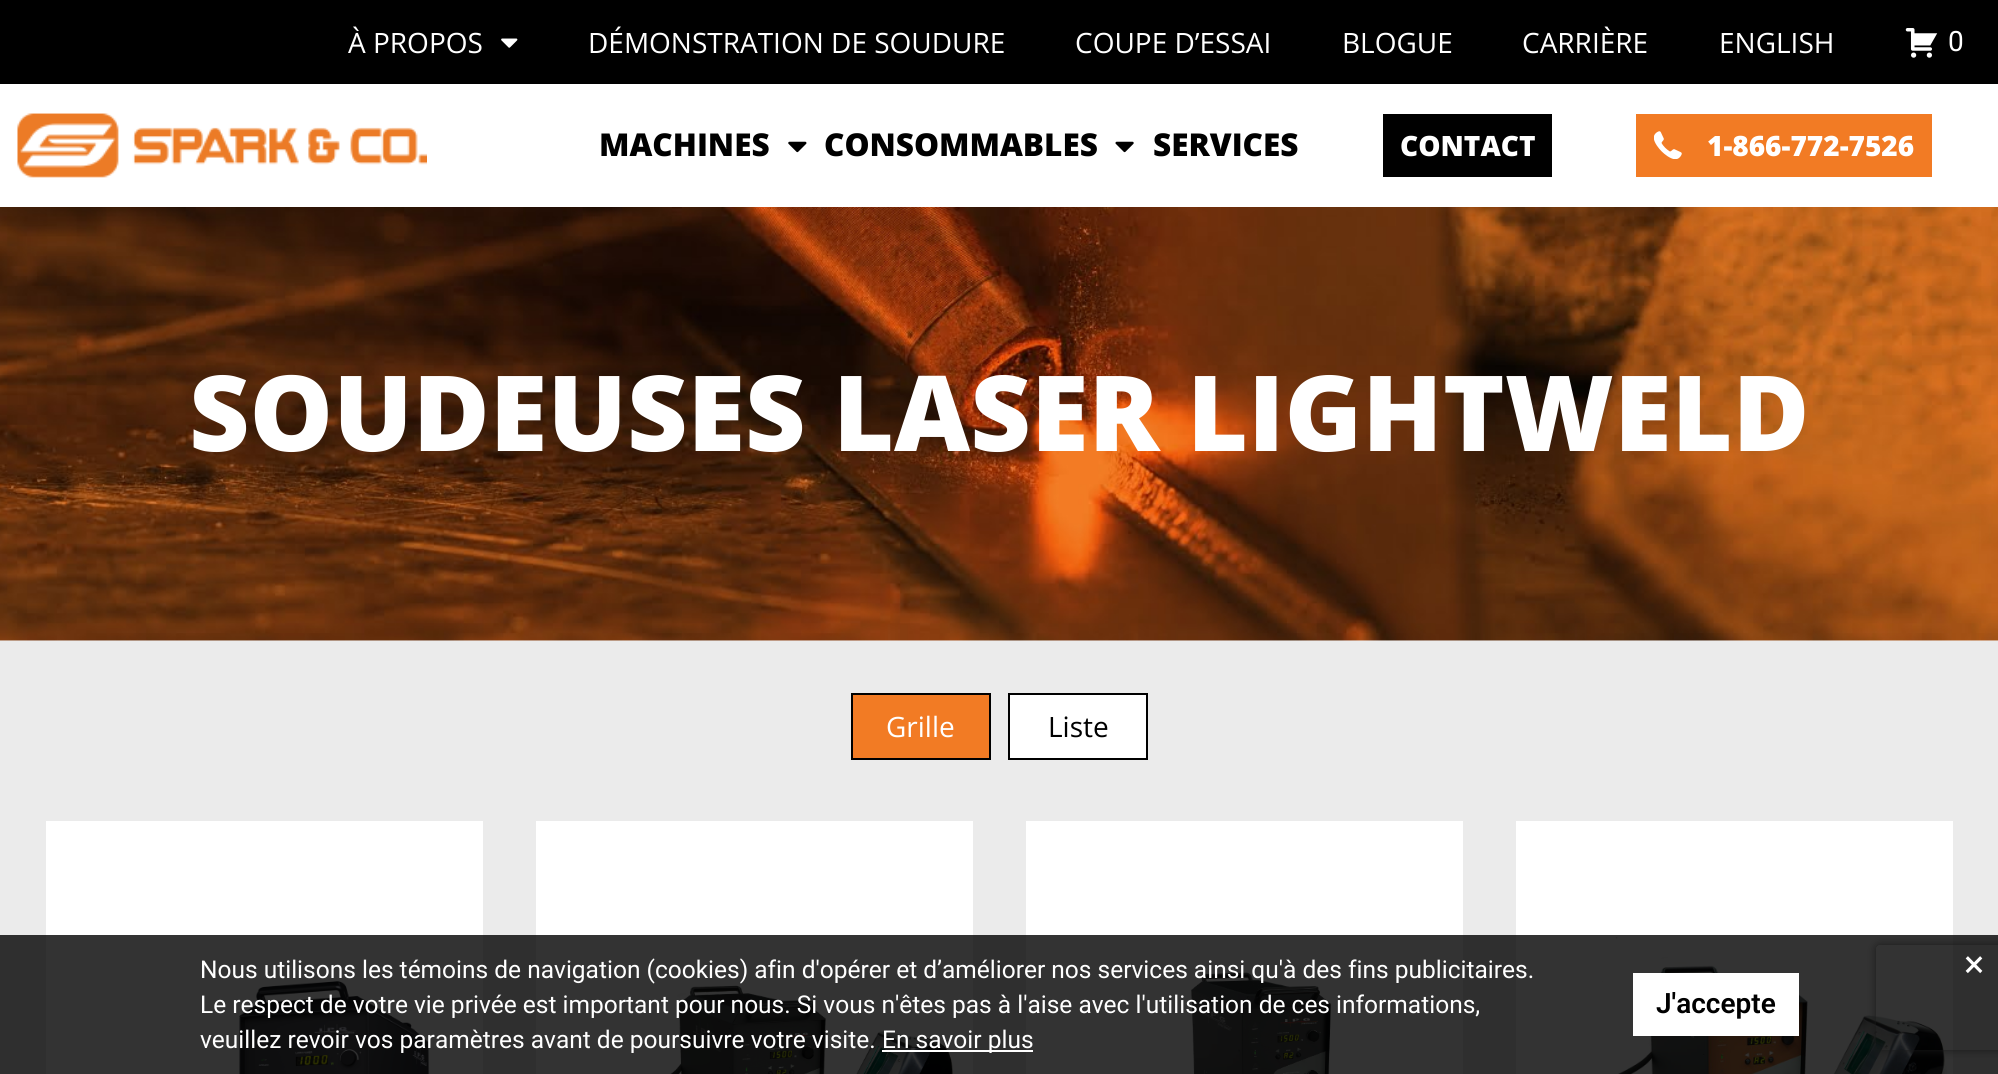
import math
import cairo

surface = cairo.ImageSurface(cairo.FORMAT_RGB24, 1998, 1074)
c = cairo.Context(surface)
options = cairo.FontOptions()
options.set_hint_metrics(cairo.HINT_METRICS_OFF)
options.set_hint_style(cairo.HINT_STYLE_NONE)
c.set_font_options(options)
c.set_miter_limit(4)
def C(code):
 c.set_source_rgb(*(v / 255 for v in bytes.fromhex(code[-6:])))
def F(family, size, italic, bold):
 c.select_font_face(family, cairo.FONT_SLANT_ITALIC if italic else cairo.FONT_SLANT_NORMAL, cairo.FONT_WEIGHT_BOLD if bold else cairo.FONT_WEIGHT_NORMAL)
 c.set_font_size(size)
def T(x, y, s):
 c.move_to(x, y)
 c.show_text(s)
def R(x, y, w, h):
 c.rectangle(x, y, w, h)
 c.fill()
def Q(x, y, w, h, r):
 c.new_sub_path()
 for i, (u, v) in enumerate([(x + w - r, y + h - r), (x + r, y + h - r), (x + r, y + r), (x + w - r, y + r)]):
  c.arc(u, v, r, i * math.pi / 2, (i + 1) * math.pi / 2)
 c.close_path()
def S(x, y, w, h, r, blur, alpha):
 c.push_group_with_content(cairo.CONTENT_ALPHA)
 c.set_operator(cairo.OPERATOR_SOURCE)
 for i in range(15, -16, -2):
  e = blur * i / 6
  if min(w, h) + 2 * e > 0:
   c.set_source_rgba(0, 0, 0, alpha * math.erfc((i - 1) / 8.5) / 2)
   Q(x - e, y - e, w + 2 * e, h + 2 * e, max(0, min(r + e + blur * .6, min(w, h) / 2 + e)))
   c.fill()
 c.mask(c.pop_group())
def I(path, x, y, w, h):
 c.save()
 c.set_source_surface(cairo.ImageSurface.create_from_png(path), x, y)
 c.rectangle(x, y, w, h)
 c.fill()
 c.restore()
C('ffffff')
c.paint()
C('000000')
R(0,0,1998,84)
F('Open Sans',28,0,0)
C('ffffff')
T(348,53,'À PROPOS')
I('1.png',501,38,17,10)
T(588,53,'DÉMONSTRATION DE SOUDURE')
T(1075,53,'COUPE D’ESSAI')
T(1342,53,'BLOGUE')
T(1522,53,'CARRIÈRE')
T(1719,53,'ENGLISH')
I('2.png',1905,28,33,30)
F('Roboto',28,0,0)
T(1948,51,'0')
I('3.png',17,113,410,65)
F('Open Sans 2 ExtraBold',31.5,0,0)
C('000000')
T(599,156,'MACHINES')
I('4.png',788,141,19,12)
T(824,156,'CONSOMMABLES')
I('5.png',1115,141,19,12)
T(1153,156,'SERVICES')
R(1383,114,169,63)
F('Open Sans 2 ExtraBold',28,0,0)
C('ffffff')
T(1400,156,'CONTACT')
C('f27b24')
R(1636,114,296,63)
I('6.png',1654,131,28,28)
C('ffffff')
T(1707,156,'1-866-772-7526')
I('7.png',0,207,1998,434)
F('Open Sans ExtraBold',105,0,0)
T(189,451,'SOUDEUSES LASER LIGHTWELD')
C('ebebeb')
R(0,641,1998,433)
C('f27b24')
c.rectangle(852,694,138,65)
c.fill_preserve()
C('000000')
c.stroke()
F('Open Sans',28,0,0)
C('ffffff')
T(886,737,'Grille')
c.rectangle(1009,694,138,65)
c.fill_preserve()
C('000000')
c.stroke()
T(1048,737,'Liste')
C('ffffff')
R(46,821,437,253)
I('8.png',239,981,191,93)
R(536,821,437,253)
I('9.png',635,977,318,97)
R(1026,821,437,253)
I('10.png',1191,972,141,102)
R(1516,821,437,253)
I('11.png',1602,937,345,137)
c.save()
c.set_fill_rule(cairo.FILL_RULE_EVEN_ODD)
c.new_path()
c.move_to(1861,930)
c.line_to(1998,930)
c.line_to(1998,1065)
c.line_to(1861,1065)
c.close_path()
c.move_to(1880,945)
c.line_to(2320,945)
c.curve_to(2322,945,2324,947,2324,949)
c.line_to(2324,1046)
c.curve_to(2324,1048,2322,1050,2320,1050)
c.line_to(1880,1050)
c.curve_to(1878,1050,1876,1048,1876,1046)
c.line_to(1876,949)
c.curve_to(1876,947,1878,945,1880,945)
c.close_path()
c.clip()
C('808080')
S(1876,945,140,105,4,4.5,1)
c.restore()
c.set_source_rgba(0,0,0,0.8)
R(0,935,1998,139)
F('Roboto',24.5,0,0)
C('ffffff')
T(200,978,'Nous utilisons les témoins de navigation (cookies) afin d\'opérer et d’améliorer nos services ainsi qu\'à des fins publicitaires.')
T(200,1013,'Le respect de votre vie privée est important pour nous. Si vous n\'êtes pas à l\'aise avec l\'utilisation de ces informations,')
T(200,1048,'veuillez revoir vos paramètres avant de poursuivre votre visite.')
R(882,1050,151,2)
T(882,1048,'En savoir plus')
R(1633,973,166,63)
F('Roboto SemiBold',28,0,0)
C('000000')
T(1656,1013,'J\'accepte')
F('Roboto',38,0,0)
C('ffffff')
T(1964,977,'×')
surface.write_to_png('o.png')
